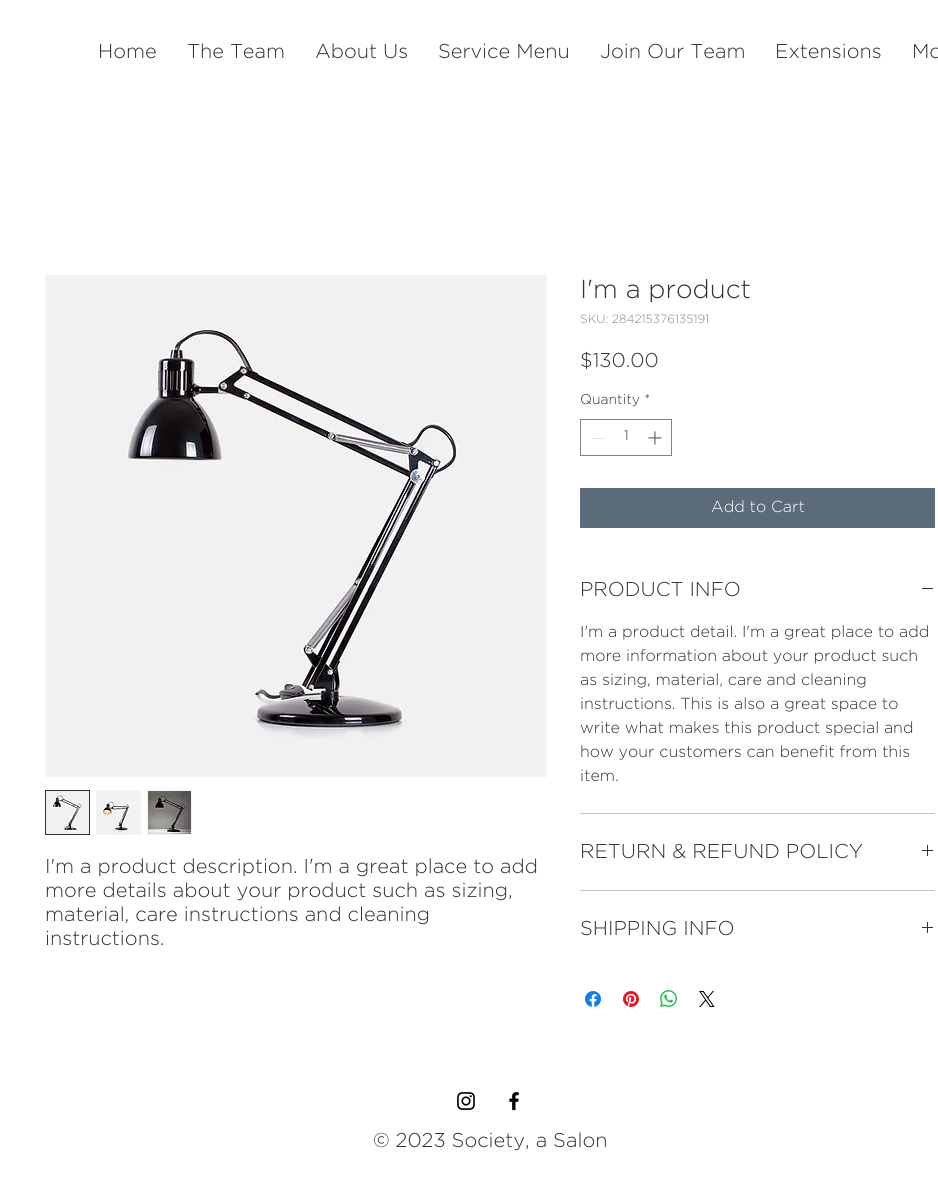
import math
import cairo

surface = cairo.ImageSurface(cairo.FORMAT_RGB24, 938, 1186)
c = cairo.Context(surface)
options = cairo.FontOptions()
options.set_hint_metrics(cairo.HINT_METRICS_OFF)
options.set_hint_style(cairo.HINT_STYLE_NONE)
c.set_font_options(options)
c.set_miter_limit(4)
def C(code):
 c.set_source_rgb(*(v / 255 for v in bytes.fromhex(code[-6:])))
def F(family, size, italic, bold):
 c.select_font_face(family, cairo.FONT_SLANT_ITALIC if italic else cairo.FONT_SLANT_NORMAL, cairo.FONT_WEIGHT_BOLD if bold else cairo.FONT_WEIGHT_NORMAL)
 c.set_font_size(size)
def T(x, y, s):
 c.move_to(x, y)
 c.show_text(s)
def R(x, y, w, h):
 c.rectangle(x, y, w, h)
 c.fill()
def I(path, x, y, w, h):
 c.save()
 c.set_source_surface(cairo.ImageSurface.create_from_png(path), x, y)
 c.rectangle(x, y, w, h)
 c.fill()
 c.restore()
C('ffffff')
c.paint()
F('Gotham Light',20,0,0)
C('303131')
T(98,58,'Home')
T(187,58,'The Team')
T(315,58,'About Us')
T(438,58,'Service Menu')
T(600,58,'Join Our Team')
T(775,58,'Extensions')
T(912,58,'Mo')
c.rectangle(45.5,275.5,501,501)
C('f0f3f6')
c.set_line_width(1)
c.stroke()
I('1.png',46,276,500,500)
c.rectangle(45.5,790.5,44,44)
C('303131')
c.stroke()
I('2.png',46,791,43,43)
c.rectangle(96.5,790.5,44,44)
C('f0f3f6')
c.stroke()
I('3.png',97,791,43,43)
c.rectangle(147.5,790.5,44,44)
c.stroke()
I('4.png',148,791,43,43)
C('303131')
T(45,873,'I\'m a product description. I\'m a great place to add')
T(45,897,'more details about your product such as sizing,')
T(45,921,'material, care instructions and cleaning')
T(45,945,'instructions.')
F('Gotham Light',26,0,0)
T(580,298,'I\'m a product')
F('Gotham Light',12,0,0)
C('858585')
T(580,323,'SKU: 284215376135191')
F('Gotham Light',20,0,0)
C('303131')
T(580,367,'$130.00')
F('Gotham Light',14,0,0)
T(580,404,'Quantity *')
c.rectangle(580.5,419.5,91,36)
C('838383')
c.stroke()
C('e3e3e3')
R(592,438,13,1)
C('303131')
T(624,440,'1')
I('5.png',648,431,14,14)
C('5c6b7a')
R(580,488,355,40)
F('Gotham Light',16,0,0)
C('ffffff')
T(711,512,'Add to Cart')
C('c2c2c2')
R(580,813,355,1)
F('Gotham Light',20,0,0)
C('303131')
T(580,596,'PRODUCT INFO')
R(922,588,11,1)
F('Gotham Light',16,0,0)
T(580,637,'I\'m a product detail. I\'m a great place to add')
T(580,661,'more information about your product such')
T(580,685,'as sizing, material, care and cleaning')
T(580,709,'instructions. This is also a great space to')
T(580,733,'write what makes this product special and')
T(580,757,'how your customers can benefit from this')
T(580,781,'item.')
C('c2c2c2')
R(580,890,355,1)
F('Gotham Light',20,0,0)
C('303131')
T(580,858,'RETURN & REFUND POLICY')
I('6.png',922,845,11,11)
T(580,935,'SHIPPING INFO')
I('6.png',922,922,11,11)
I('7.png',585,991,16,16)
I('8.png',623,991,16,16)
I('9.png',660,990,17,17)
I('10.png',699,991,16,16)
I('11.png',457,1092,18,18)
I('12.png',509,1091,10,20)
T(373,1147,'© 2023 Society, a Salon')
surface.write_to_png('o.png')
